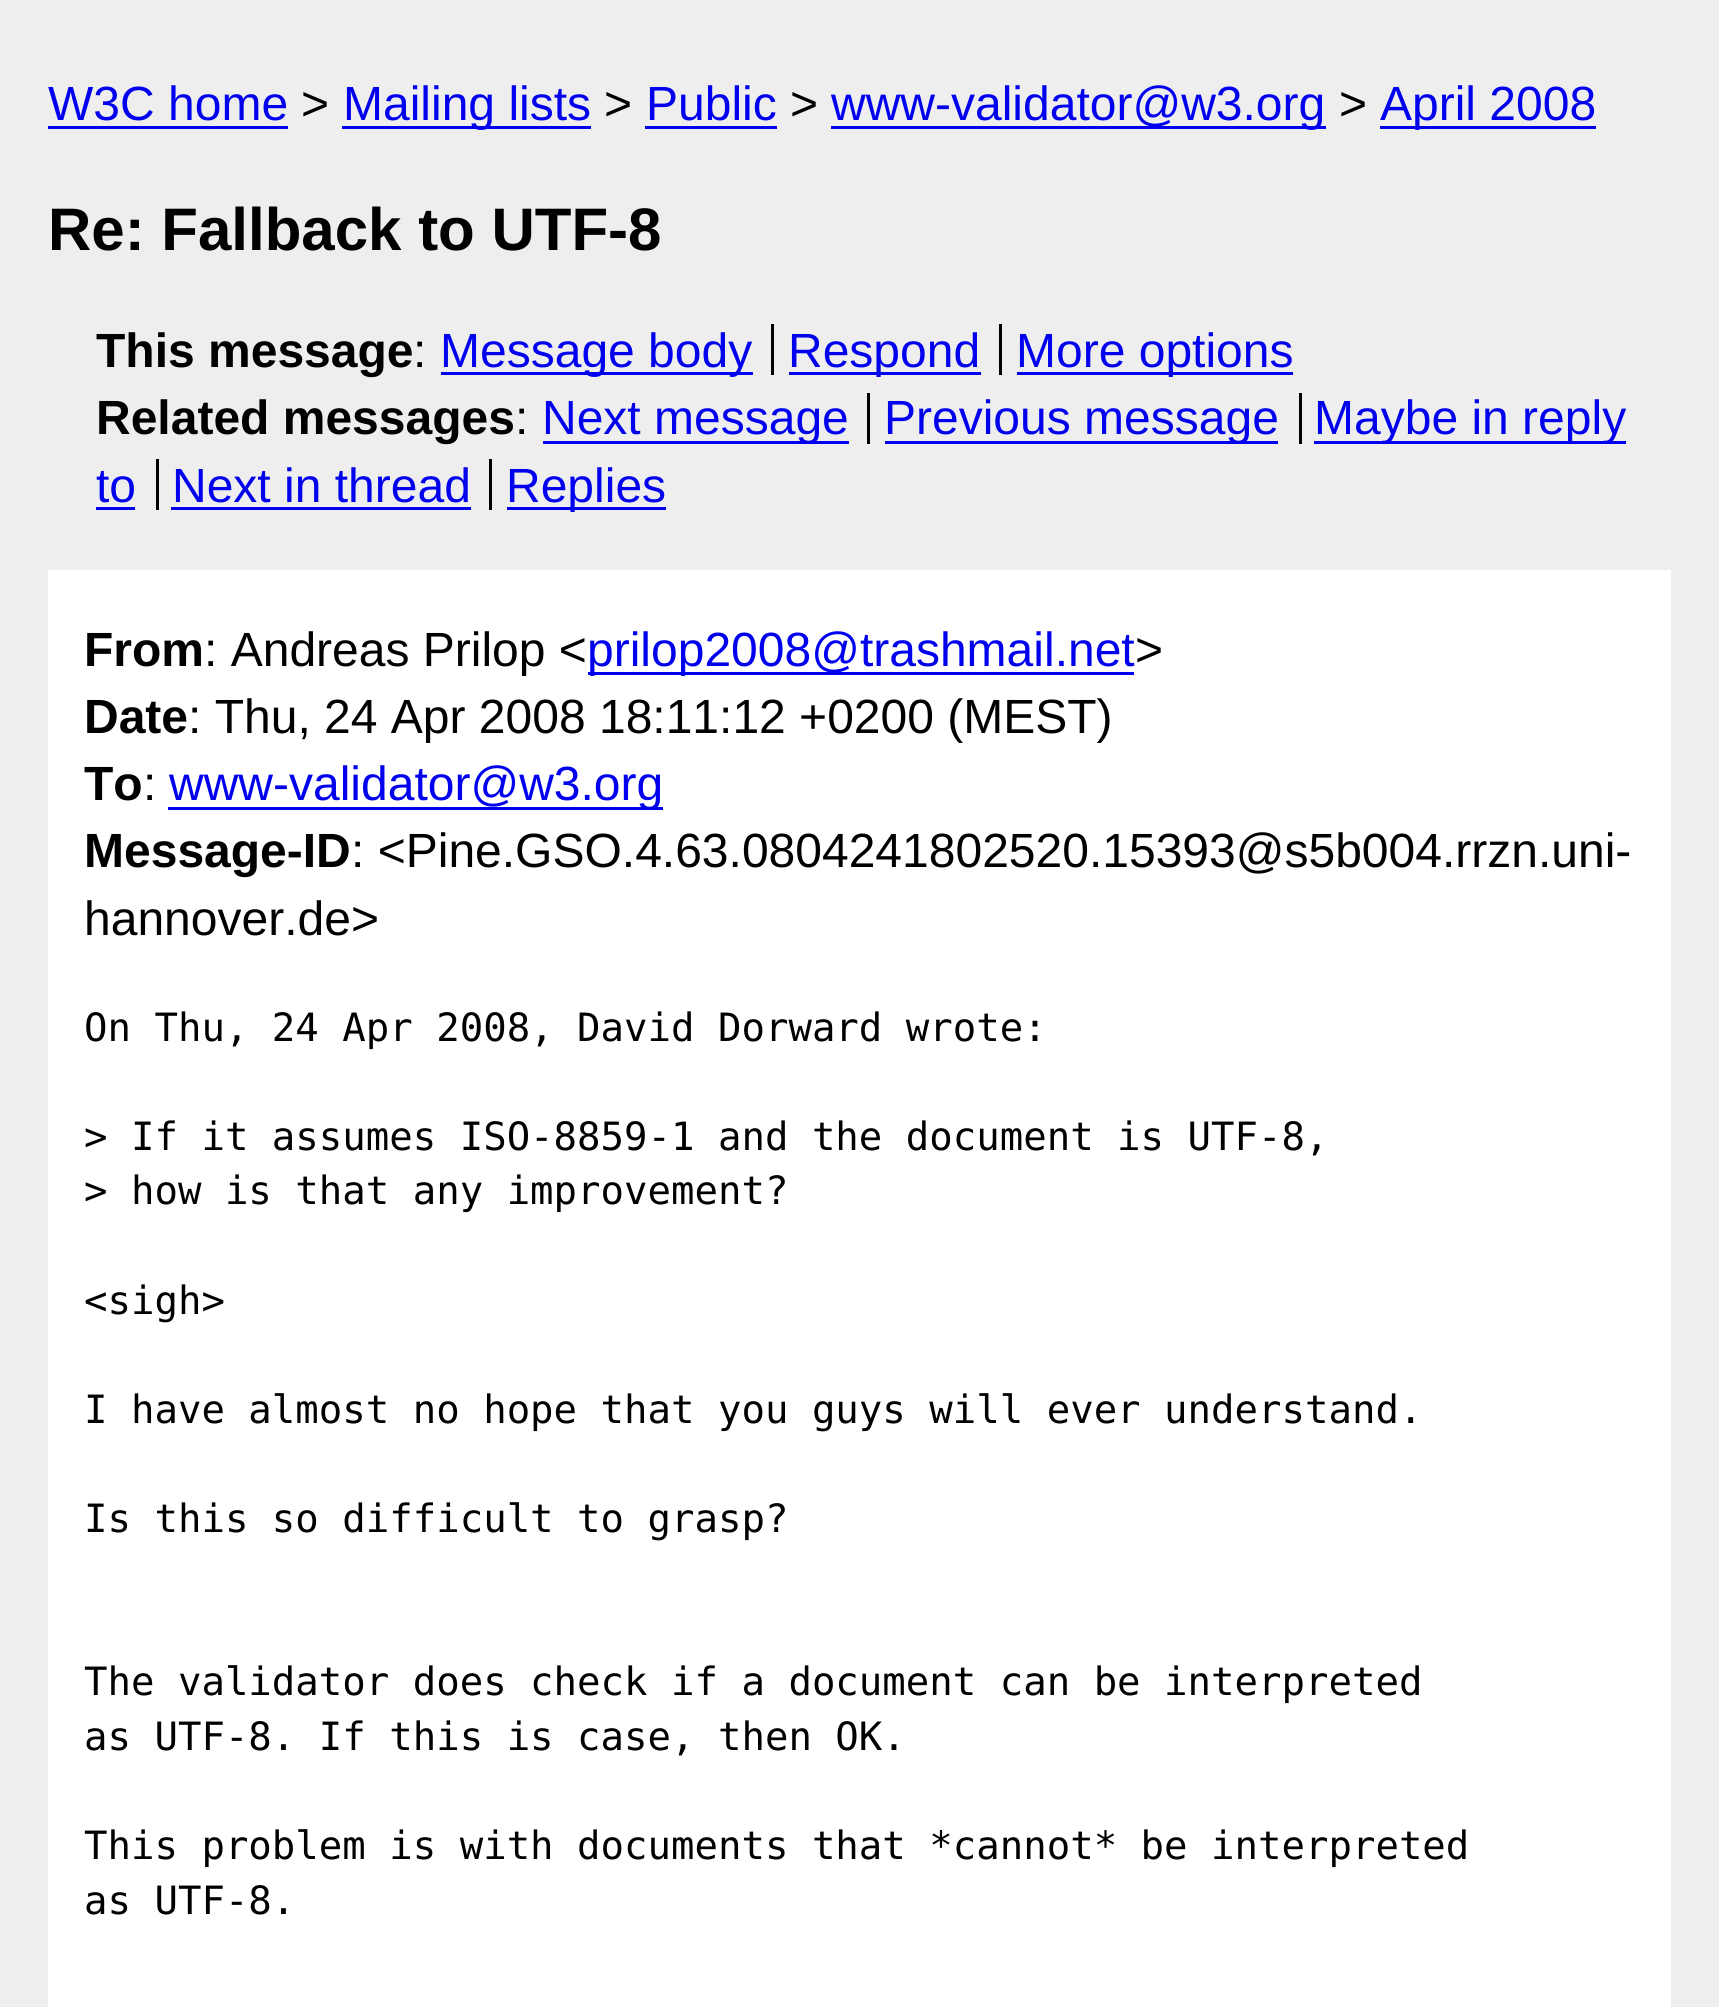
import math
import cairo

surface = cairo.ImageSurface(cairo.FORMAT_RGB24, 1719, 2007)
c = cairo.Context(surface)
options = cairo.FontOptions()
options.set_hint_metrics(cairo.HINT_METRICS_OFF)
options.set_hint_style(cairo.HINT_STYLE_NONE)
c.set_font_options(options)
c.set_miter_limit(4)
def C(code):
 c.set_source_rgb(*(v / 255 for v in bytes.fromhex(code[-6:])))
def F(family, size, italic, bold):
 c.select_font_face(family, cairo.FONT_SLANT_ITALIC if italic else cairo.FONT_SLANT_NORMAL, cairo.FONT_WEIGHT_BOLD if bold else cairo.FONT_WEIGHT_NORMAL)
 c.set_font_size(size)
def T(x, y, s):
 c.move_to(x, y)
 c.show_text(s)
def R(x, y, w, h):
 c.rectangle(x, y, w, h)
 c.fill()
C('eeeeee')
c.paint()
F('Liberation Sans',48,0,0)
C('0000ee')
T(48,120,'W3C home')
R(48,126,240,3)
C('000000')
T(301,120,'>')
C('0000ee')
R(342,126,249,3)
T(343,120,'Mailing lists')
C('000000')
T(604,120,'>')
C('0000ee')
T(646,120,'Public')
R(645,126,132,3)
C('000000')
T(790,120,'>')
C('0000ee')
R(831,126,495,3)
T(831,120,'www-validator@w3.org')
C('000000')
T(1339,120,'>')
C('0000ee')
R(1380,126,216,3)
T(1380,120,'April 2008')
F('Liberation Sans',60,0,1)
C('000000')
T(48,250,'Re: Fallback to UTF-8')
F('Liberation Sans',48,0,1)
T(96,367,'This message')
F('Liberation Sans',48,0,0)
T(413,367,':')
C('0000ee')
R(441,372,312,3)
T(440,367,'Message body')
R(789,372,192,3)
T(788,367,'Respond')
C('000000')
R(771,324,3,51)
C('0000ee')
R(1017,372,276,3)
T(1016,367,'More options')
C('000000')
R(999,324,3,51)
F('Liberation Sans',48,0,1)
T(96,434,'Related messages')
F('Liberation Sans',48,0,0)
T(515,434,':')
C('0000ee')
R(543,441,306,3)
T(542,434,'Next message')
R(885,441,393,3)
T(884,434,'Previous message')
C('000000')
R(867,393,3,51)
C('0000ee')
R(1314,441,312,3)
T(1314,434,'Maybe in reply')
C('000000')
R(1299,393,3,51)
C('0000ee')
T(96,502,'to')
R(96,507,39,3)
T(172,502,'Next in thread')
C('000000')
R(156,459,3,51)
R(489,459,3,51)
C('0000ee')
R(171,507,300,3)
R(507,507,159,3)
T(506,502,'Replies')
C('ffffff')
R(48,570,1623,1437)
F('Liberation Sans',48,0,1)
C('000000')
T(84,666,'From')
F('Liberation Sans',48,0,0)
T(204,666,': Andreas Prilop <')
C('0000ee')
R(588,672,546,3)
T(587,666,'prilop2008@trashmail.net')
C('000000')
T(1135,666,'>')
F('Liberation Sans',48,0,1)
T(84,733,'Date')
F('Liberation Sans',48,0,0)
T(188,733,': Thu, 24 Apr 2008 18:11:12 +0200 (MEST)')
F('Liberation Sans',48,0,1)
T(84,800,'To')
F('Liberation Sans',48,0,0)
T(143,800,':')
C('0000ee')
R(168,807,495,3)
T(169,800,'www-validator@w3.org')
F('Liberation Sans',48,0,1)
C('000000')
T(84,867,'Message-ID')
F('Liberation Sans',48,0,0)
T(351,867,': <Pine.GSO.4.63.0804241802520.15393@s5b004.rrzn.uni-')
T(84,935,'hannover.de>')
F('DejaVu Sans Mono',39,0,0)
T(84,1041,'On Thu, 24 Apr 2008, David Dorward wrote:')
T(84,1150,'> If it assumes ISO-8859-1 and the document is UTF-8,')
T(84,1204,'> how is that any improvement?')
T(84,1314,'<sigh>')
T(84,1423,'I have almost no hope that you guys will ever understand.')
T(84,1532,'Is this so difficult to grasp?')
T(84,1695,'The validator does check if a document can be interpreted')
T(84,1750,'as UTF-8. If this is case, then OK.')
T(84,1859,'This problem is with documents that *cannot* be interpreted')
T(84,1914,'as UTF-8.')
surface.write_to_png('o.png')
